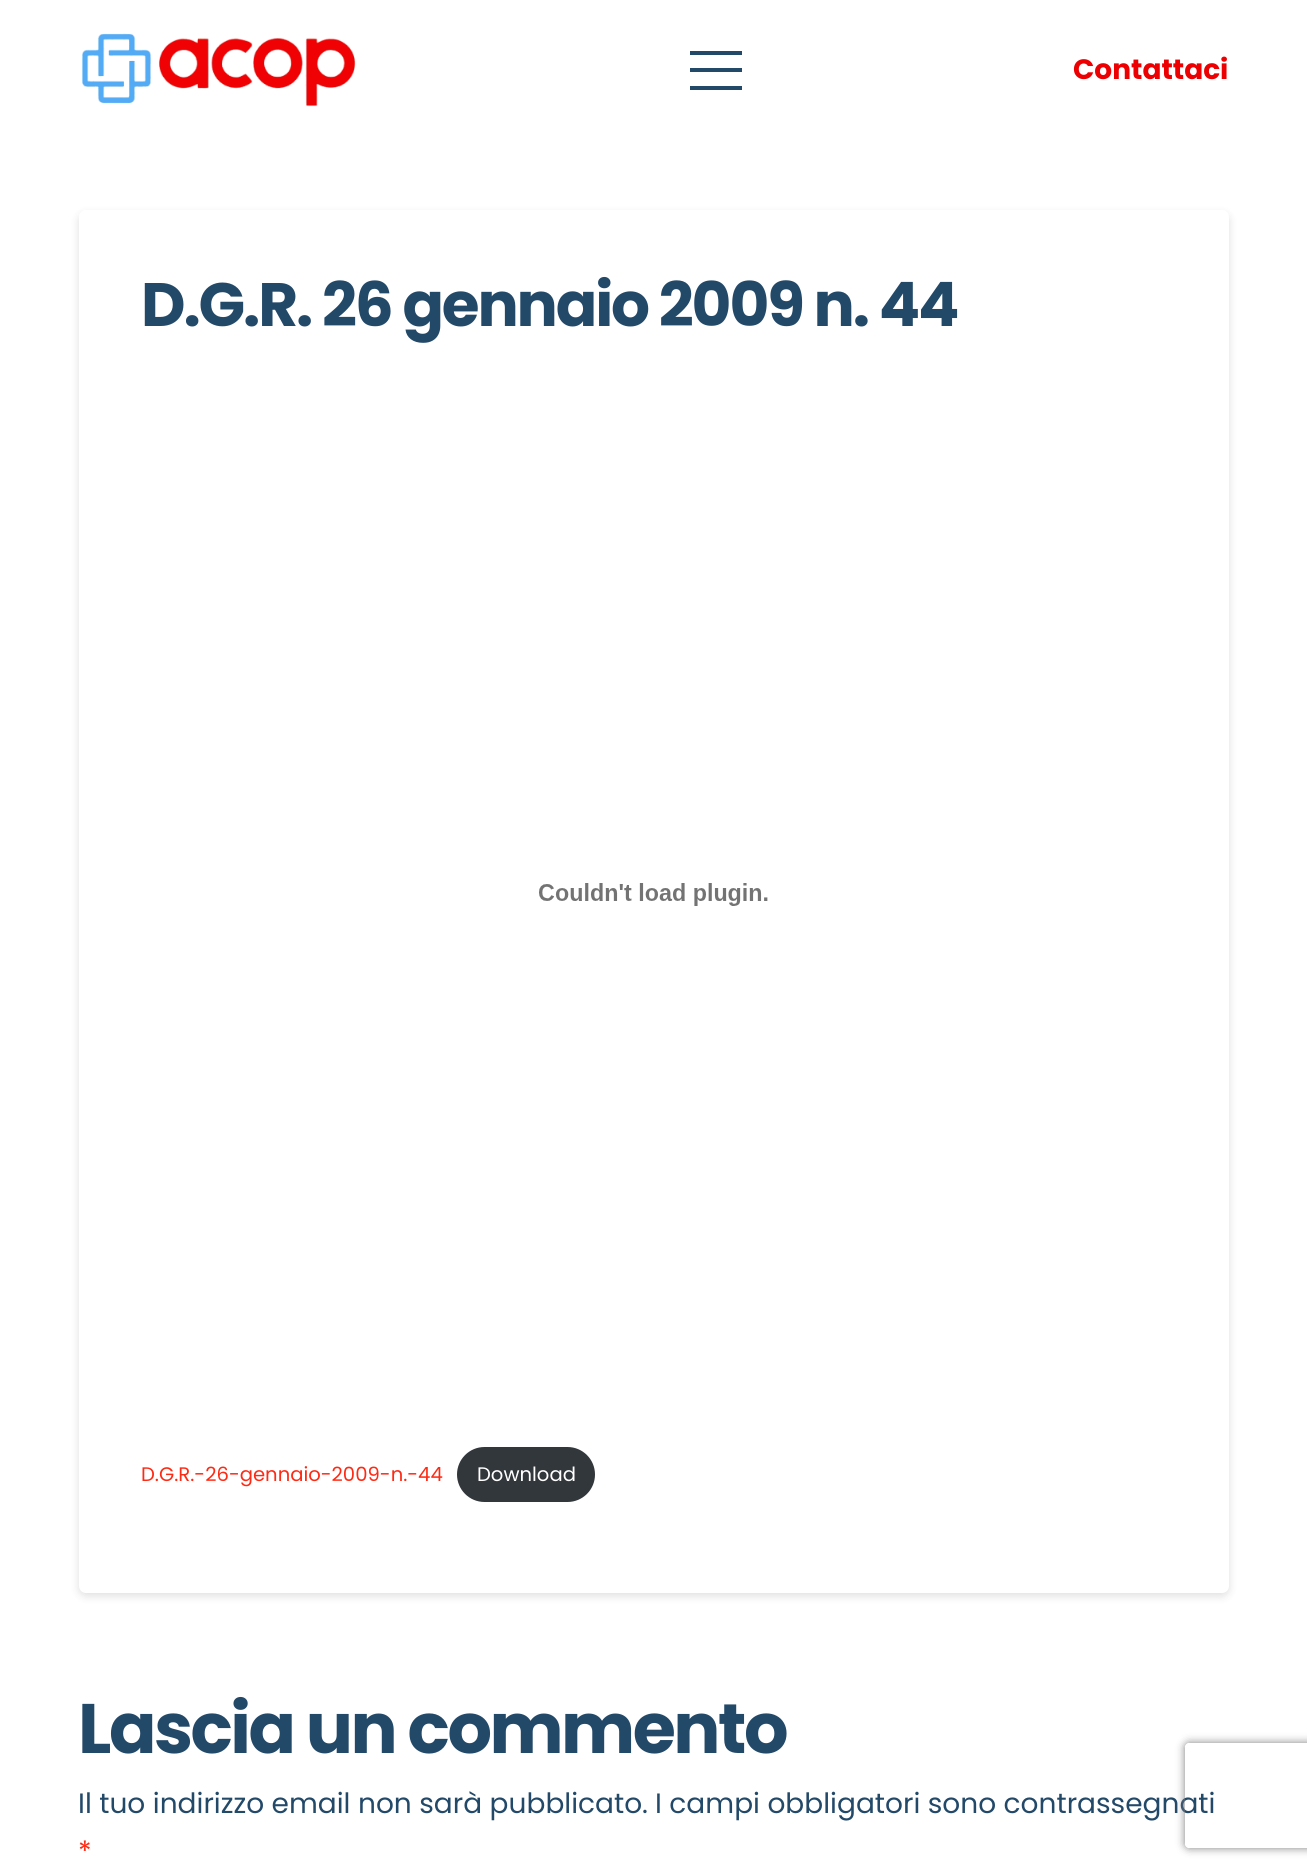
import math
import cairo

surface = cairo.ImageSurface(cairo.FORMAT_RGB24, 1307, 1871)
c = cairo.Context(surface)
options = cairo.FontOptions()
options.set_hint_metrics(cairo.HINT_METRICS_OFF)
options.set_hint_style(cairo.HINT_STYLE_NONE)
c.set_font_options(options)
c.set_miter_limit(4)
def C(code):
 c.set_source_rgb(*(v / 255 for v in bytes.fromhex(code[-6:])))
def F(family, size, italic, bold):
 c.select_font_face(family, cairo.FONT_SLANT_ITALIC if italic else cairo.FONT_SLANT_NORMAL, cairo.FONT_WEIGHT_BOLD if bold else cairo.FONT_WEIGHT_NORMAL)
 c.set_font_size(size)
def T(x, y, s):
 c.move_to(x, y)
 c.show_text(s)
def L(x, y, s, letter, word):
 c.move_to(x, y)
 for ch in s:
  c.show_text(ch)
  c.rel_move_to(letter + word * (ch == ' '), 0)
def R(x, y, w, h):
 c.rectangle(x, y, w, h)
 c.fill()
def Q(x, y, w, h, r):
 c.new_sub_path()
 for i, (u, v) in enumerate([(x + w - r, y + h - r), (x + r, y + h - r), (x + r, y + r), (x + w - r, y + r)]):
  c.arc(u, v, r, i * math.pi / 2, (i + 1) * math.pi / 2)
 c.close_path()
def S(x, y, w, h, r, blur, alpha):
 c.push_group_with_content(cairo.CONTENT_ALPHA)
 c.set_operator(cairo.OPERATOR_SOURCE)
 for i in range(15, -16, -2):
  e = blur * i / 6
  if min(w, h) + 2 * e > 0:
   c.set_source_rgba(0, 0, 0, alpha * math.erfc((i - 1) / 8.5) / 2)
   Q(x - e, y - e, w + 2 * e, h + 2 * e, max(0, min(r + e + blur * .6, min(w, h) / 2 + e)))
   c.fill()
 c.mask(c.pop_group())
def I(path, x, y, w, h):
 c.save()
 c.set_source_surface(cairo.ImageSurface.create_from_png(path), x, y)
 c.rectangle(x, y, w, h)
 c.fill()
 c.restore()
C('ffffff')
c.paint()
I('1.png',82,33,274,74)
C('234969')
R(690,51,52,4)
R(690,68,52,4)
R(690,86,52,4)
F('Poppins',28,0,1)
C('ec0002')
T(1073,79,'Contattaci')
C('000000')
S(79,214,1150,1382,7,4.5,.13)
C('ffffff')
Q(79,210,1150,1383,7)
c.fill()
F('Poppins',61.25,0,1)
C('234969')
L(141,326,'D.G.R. 26 gennaio 2009 n. 44',-2.15,0)
I('2.png',539,883,229,23)
F('Poppins',19.6,0,0)
C('ff2a13')
T(141,1481,'D.G.R.-26-gennaio-2009-n.-44')
C('32373c')
Q(457,1447,138,55,27.5)
c.fill()
C('ffffff')
T(477,1481,'Download')
F('Poppins',70,0,1)
C('234969')
L(78,1753,'Lascia un commento',-2.5,0)
F('Poppins',28,0,0)
T(78,1813,'Il tuo indirizzo email non sarà pubblicato.')
T(655,1813,'I campi obbligatori sono contrassegnati')
C('ff2a13')
T(78,1861,'*')
c.save()
c.set_fill_rule(cairo.FILL_RULE_EVEN_ODD)
c.new_path()
c.move_to(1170,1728)
c.line_to(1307,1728)
c.line_to(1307,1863)
c.line_to(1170,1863)
c.close_path()
c.move_to(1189,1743)
c.line_to(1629,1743)
c.curve_to(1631,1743,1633,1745,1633,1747)
c.line_to(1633,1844)
c.curve_to(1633,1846,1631,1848,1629,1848)
c.line_to(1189,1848)
c.curve_to(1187,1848,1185,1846,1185,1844)
c.line_to(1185,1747)
c.curve_to(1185,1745,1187,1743,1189,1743)
c.close_path()
c.clip()
C('808080')
S(1185,1743,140,105,4,4.5,1)
c.restore()
surface.write_to_png('o.png')
